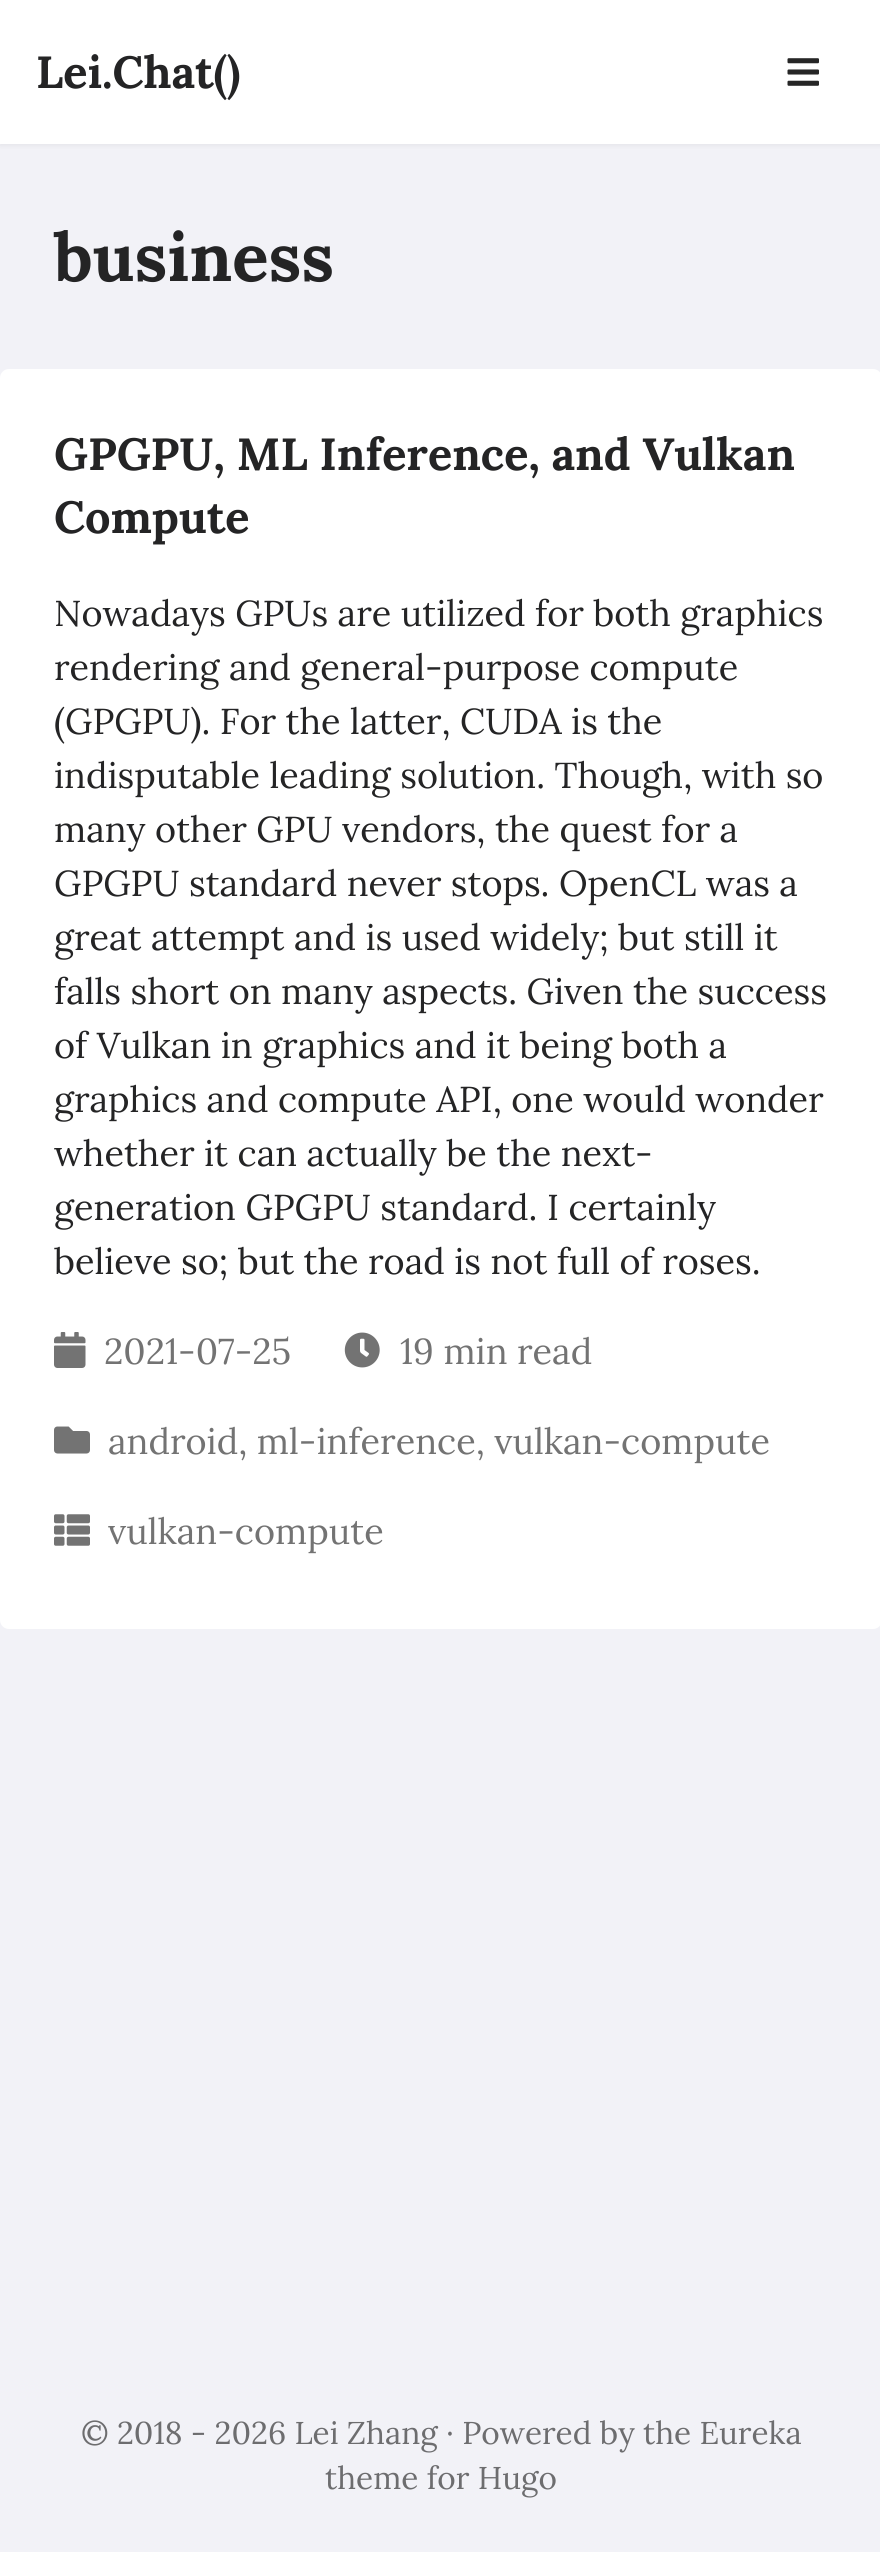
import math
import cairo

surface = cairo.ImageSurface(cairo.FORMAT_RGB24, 880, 2552)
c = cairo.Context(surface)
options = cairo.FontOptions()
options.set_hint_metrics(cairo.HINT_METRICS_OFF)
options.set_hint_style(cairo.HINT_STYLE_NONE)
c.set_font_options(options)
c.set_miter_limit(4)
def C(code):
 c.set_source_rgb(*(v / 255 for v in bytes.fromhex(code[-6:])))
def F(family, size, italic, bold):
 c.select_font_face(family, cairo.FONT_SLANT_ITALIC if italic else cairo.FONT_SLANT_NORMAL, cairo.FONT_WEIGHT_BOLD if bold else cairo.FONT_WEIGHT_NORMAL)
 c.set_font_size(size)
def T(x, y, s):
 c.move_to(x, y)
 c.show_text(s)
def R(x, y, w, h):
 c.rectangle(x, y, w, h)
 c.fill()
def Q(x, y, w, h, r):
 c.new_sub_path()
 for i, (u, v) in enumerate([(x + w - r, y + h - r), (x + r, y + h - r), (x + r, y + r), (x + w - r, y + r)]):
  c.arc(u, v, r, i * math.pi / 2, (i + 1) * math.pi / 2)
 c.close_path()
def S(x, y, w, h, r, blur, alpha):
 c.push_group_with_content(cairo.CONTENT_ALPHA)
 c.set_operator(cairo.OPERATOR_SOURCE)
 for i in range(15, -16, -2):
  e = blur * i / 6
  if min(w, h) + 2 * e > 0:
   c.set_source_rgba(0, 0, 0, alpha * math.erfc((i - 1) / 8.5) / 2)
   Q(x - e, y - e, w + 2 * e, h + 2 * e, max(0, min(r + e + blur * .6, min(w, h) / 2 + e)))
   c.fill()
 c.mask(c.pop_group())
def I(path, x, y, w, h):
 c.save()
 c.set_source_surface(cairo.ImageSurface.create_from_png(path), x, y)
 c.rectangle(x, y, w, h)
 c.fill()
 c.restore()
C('f2f2f7')
c.paint()
C('000000')
S(0,2,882,144,0,2,.05)
C('ffffff')
R(0,0,880,144)
F('Lora',45,0,1)
C('242425')
T(36,88,'Lei.Chat()')
I('1.png',787,58,32,28)
F('Lora',67.5,0,1)
T(54,281,'business')
C('ffffff')
Q(0,369,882,1260,9)
c.fill()
F('Lora',45,0,1)
C('242425')
T(54,470,'GPGPU, ML Inference, and Vulkan')
T(54,533,'Compute')
F('Lora',36,0,0)
T(54,626,'Nowadays GPUs are utilized for both graphics')
T(54,680,'rendering and general-purpose compute')
T(54,734,'(GPGPU). For the latter, CUDA is the')
T(54,788,'indisputable leading solution. Though, with so')
T(54,842,'many other GPU vendors, the quest for a')
T(54,896,'GPGPU standard never stops. OpenCL was a')
T(54,950,'great attempt and is used widely; but still it')
T(54,1004,'falls short on many aspects. Given the success')
T(54,1058,'of Vulkan in graphics and it being both a')
T(54,1112,'graphics and compute API, one would wonder')
T(54,1166,'whether it can actually be the next-')
T(54,1220,'generation GPGPU standard. I certainly')
T(54,1274,'believe so; but the road is not full of roses.')
I('2.png',54,1332,32,36)
C('737373')
T(104,1364,'2021-07-25')
I('3.png',344,1332,36,36)
T(400,1364,'19 min read')
I('4.png',54,1426,36,28)
T(108,1454,'android, ml-inference, vulkan-compute')
I('5.png',54,1514,36,32)
T(108,1544,'vulkan-compute')
F('Lora',31.5,0,0)
C('6d6d6f')
T(81,2444,'© 2018 - 2026 Lei Zhang · Powered by the Eureka')
T(325,2489,'theme for Hugo')
surface.write_to_png('o.png')
